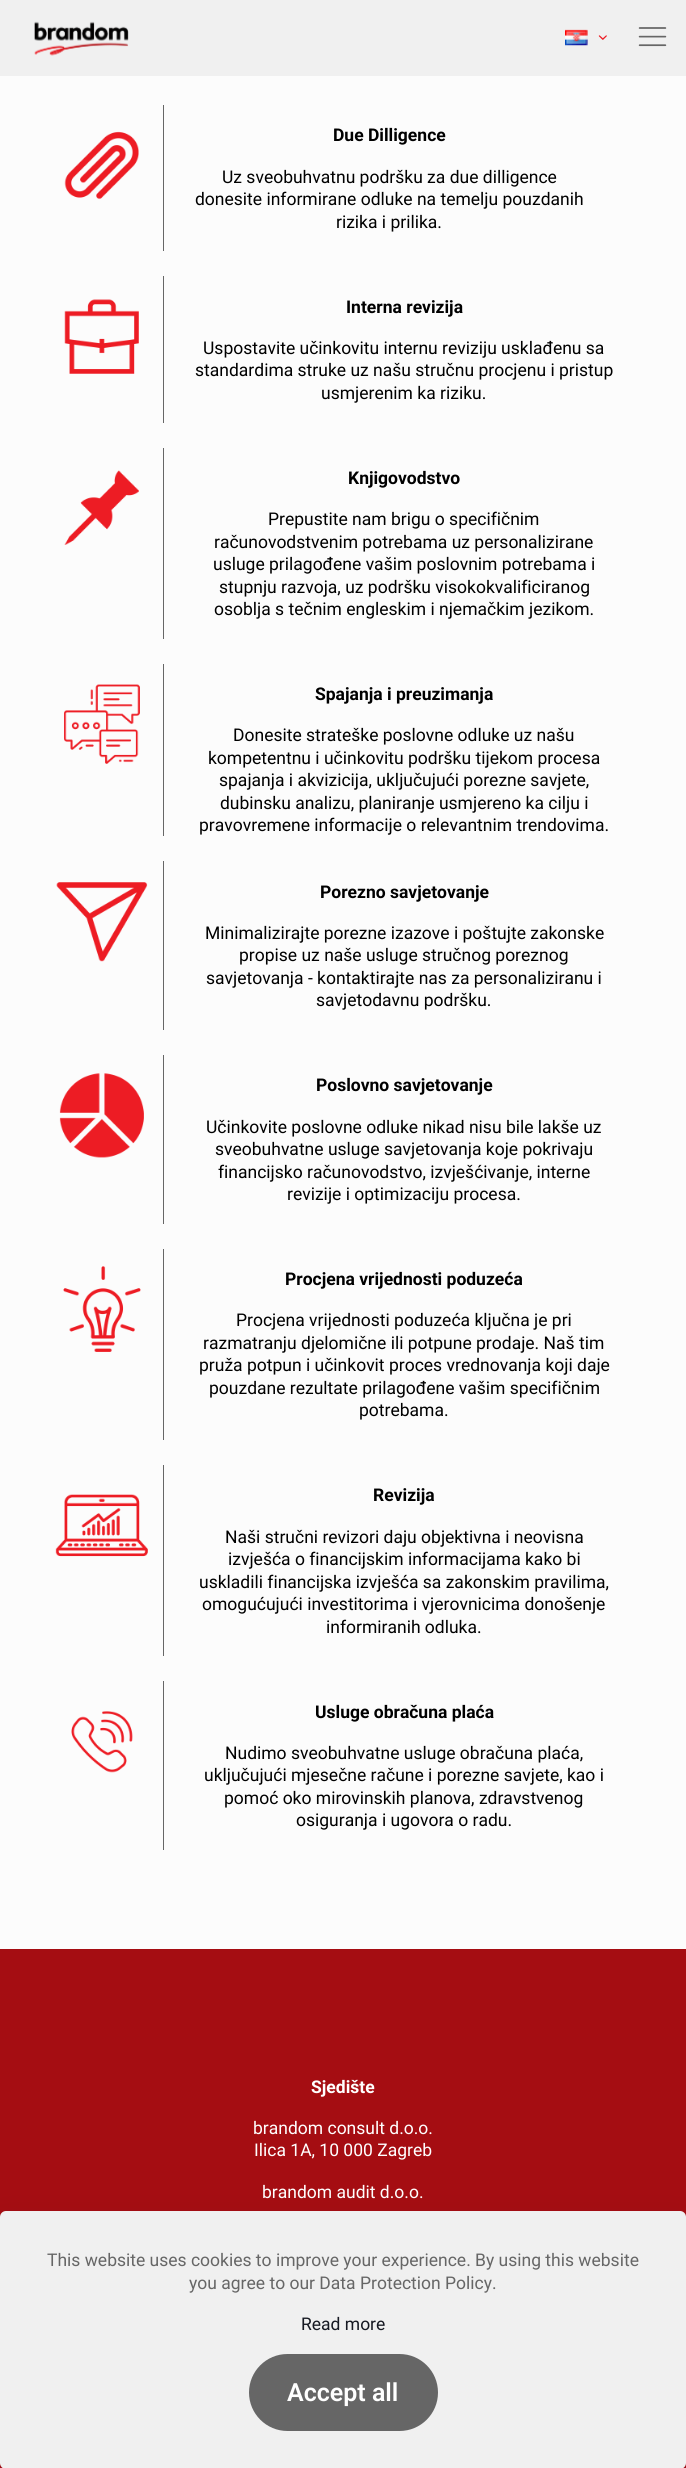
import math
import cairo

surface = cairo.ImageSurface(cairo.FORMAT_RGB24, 686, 2468)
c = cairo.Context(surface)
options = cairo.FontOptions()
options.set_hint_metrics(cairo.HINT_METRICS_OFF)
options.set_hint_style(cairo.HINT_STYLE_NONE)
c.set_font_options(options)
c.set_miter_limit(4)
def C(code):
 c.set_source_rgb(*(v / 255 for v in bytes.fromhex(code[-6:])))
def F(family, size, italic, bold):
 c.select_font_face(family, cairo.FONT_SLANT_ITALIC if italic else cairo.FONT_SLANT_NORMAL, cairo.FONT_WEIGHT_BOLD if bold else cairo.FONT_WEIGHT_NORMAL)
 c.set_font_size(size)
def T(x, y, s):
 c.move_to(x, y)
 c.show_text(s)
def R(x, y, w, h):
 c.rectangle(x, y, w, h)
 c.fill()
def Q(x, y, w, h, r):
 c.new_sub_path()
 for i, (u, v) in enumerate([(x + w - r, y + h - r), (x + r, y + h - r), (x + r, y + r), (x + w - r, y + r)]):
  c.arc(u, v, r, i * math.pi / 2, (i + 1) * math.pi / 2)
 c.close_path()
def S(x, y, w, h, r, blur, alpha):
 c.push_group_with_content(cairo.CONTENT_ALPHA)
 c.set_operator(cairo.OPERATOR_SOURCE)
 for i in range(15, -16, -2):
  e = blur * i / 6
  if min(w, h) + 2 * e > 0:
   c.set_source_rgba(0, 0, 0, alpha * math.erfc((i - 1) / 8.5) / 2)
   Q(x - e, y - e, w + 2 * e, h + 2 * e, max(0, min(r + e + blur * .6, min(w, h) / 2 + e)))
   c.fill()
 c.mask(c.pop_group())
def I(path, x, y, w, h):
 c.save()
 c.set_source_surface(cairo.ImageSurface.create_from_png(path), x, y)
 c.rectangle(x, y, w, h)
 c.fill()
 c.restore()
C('fcfcfc')
c.paint()
C('f0f0f0')
R(0,0,686,76)
I('1.png',34,21,95,35)
I('2.png',638,27,29,20)
I('3.png',565,29,23,17)
I('4.png',598,35,9,5)
I('5.png',64,131,75,69)
C('666666')
R(163,105,1,146)
F('Roboto',17.5,0,1)
C('000000')
T(333,141,'Due Dilligence')
F('Roboto',17.5,0,0)
T(222,183,'Uz sveobuhvatnu podršku za due dilligence')
T(195,205,'donesite informirane odluke na temelju pouzdanih')
T(336,228,'rizika i prilika.')
I('6.png',64,299,75,75)
C('666666')
R(163,276,1,147)
F('Roboto',17.5,0,1)
C('000000')
T(346,313,'Interna revizija')
F('Roboto',17.5,0,0)
T(203,354,'Uspostavite učinkovitu internu reviziju usklađenu sa')
T(195,376,'standardima struke uz našu stručnu procjenu i pristup')
T(321,399,'usmjerenim ka riziku.')
I('7.png',64,470,75,75)
C('666666')
R(163,448,1,191)
F('Roboto',17.5,0,1)
C('000000')
T(348,484,'Knjigovodstvo')
F('Roboto',17.5,0,0)
T(268,525,'Prepustite nam brigu o specifičnim')
T(214,548,'računovodstvenim potrebama uz personalizirane')
T(213,570,'usluge prilagođene vašim poslovnim potrebama i')
T(219,593,'stupnju razvoja, uz podršku visokokvalificiranog')
T(214,615,'osoblja s tečnim engleskim i njemačkim jezikom.')
I('8.png',64,684,76,80)
C('666666')
R(163,664,1,172)
F('Roboto',17.5,0,1)
C('000000')
T(315,700,'Spajanja i preuzimanja')
F('Roboto',17.5,0,0)
T(233,741,'Donesite strateške poslovne odluke uz našu')
T(208,764,'kompetentnu i učinkovitu podršku tijekom procesa')
T(219,786,'spajanja i akvizicija, uključujući porezne savjete,')
T(220,809,'dubinsku analizu, planiranje usmjereno ka cilju i')
T(199,831,'pravovremene informacije o relevantnim trendovima.')
I('9.png',56,882,92,80)
C('666666')
R(163,861,1,169)
F('Roboto',17.5,0,1)
C('000000')
T(320,898,'Porezno savjetovanje')
F('Roboto',17.5,0,0)
T(205,939,'Minimalizirajte porezne izazove i poštujte zakonske')
T(239,961,'propise uz naše usluge stručnog poreznog')
T(206,984,'savjetovanja - kontaktirajte nas za personaliziranu i')
T(316,1006,'savjetodavnu podršku.')
I('10.png',59,1073,85,85)
C('666666')
R(163,1055,1,169)
F('Roboto',17.5,0,1)
C('000000')
T(316,1091,'Poslovno savjetovanje')
F('Roboto',17.5,0,0)
T(206,1133,'Učinkovite poslovne odluke nikad nisu bile lakše uz')
T(215,1155,'sveobuhvatne usluge savjetovanja koje pokrivaju')
T(218,1178,'financijsko računovodstvo, izvješćivanje, interne')
T(287,1200,'revizije i optimizaciju procesa.')
I('11.png',63,1266,78,86)
C('666666')
R(163,1249,1,191)
F('Roboto',17.5,0,1)
C('000000')
T(285,1285,'Procjena vrijednosti poduzeća')
F('Roboto',17.5,0,0)
T(236,1326,'Procjena vrijednosti poduzeća ključna je pri')
T(203,1349,'razmatranju djelomične ili potpune prodaje. Naš tim')
T(199,1371,'pruža potpun i učinkovit proces vrednovanja koji daje')
T(209,1394,'pouzdane rezultate prilagođene vašim specifičnim')
T(359,1416,'potrebama.')
I('12.png',55,1494,93,63)
C('666666')
R(163,1465,1,191)
F('Roboto',17.5,0,1)
C('000000')
T(373,1501,'Revizija')
F('Roboto',17.5,0,0)
T(225,1543,'Naši stručni revizori daju objektivna i neovisna')
T(228,1565,'izvješća o financijskim informacijama kako bi')
T(199,1588,'uskladili financijska izvješća sa zakonskim pravilima,')
T(202,1610,'omogućujući investitorima i vjerovnicima donošenje')
T(326,1633,'informiranih odluka.')
I('13.png',71,1711,62,62)
C('666666')
R(163,1681,1,169)
F('Roboto',17.5,0,1)
C('000000')
T(315,1718,'Usluge obračuna plaća')
F('Roboto',17.5,0,0)
T(225,1759,'Nudimo sveobuhvatne usluge obračuna plaća,')
T(204,1781,'uključujući mjesečne račune i porezne savjete, kao i')
T(224,1804,'pomoć oko mirovinskih planova, zdravstvenog')
T(296,1826,'osiguranja i ugovora o radu.')
C('a50d12')
R(0,1949,686,519)
F('Roboto',17.5,0,1)
C('ffffff')
T(311,2093,'Sjedište')
F('Roboto',17.5,0,0)
T(253,2134,'brandom consult d.o.o.')
T(254,2156,'Ilica 1A, 10 000 Zagreb')
T(262,2198,'brandom audit d.o.o.')
C('010727')
S(0,2230,686,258,6,19,.13)
C('f0f0f0')
Q(0,2211,686,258,6)
c.fill()
C('666666')
T(47,2266,'This website uses cookies to improve your experience. By using this website')
T(189,2289,'you agree to our Data Protection Policy.')
C('161922')
T(301,2330,'Read more')
C('666666')
Q(249,2354,189,77,38.5)
c.fill()
F('Roboto SemiBold',25,0,0)
C('ffffff')
T(287,2401,'Accept all')
surface.write_to_png('o.png')
